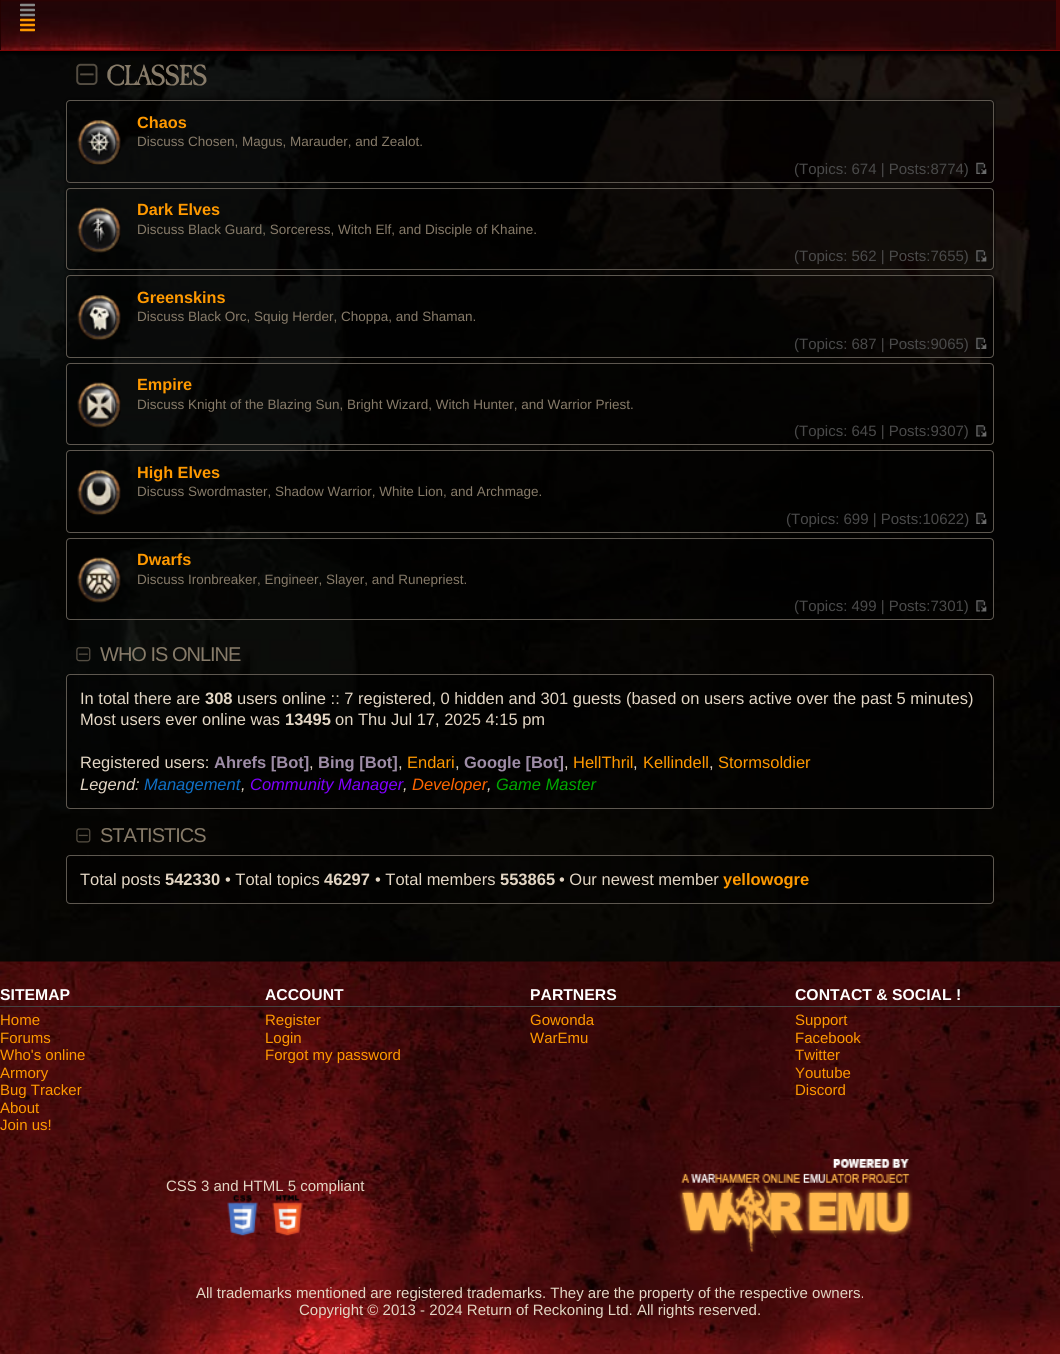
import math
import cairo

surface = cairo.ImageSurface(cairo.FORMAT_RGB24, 1060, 1354)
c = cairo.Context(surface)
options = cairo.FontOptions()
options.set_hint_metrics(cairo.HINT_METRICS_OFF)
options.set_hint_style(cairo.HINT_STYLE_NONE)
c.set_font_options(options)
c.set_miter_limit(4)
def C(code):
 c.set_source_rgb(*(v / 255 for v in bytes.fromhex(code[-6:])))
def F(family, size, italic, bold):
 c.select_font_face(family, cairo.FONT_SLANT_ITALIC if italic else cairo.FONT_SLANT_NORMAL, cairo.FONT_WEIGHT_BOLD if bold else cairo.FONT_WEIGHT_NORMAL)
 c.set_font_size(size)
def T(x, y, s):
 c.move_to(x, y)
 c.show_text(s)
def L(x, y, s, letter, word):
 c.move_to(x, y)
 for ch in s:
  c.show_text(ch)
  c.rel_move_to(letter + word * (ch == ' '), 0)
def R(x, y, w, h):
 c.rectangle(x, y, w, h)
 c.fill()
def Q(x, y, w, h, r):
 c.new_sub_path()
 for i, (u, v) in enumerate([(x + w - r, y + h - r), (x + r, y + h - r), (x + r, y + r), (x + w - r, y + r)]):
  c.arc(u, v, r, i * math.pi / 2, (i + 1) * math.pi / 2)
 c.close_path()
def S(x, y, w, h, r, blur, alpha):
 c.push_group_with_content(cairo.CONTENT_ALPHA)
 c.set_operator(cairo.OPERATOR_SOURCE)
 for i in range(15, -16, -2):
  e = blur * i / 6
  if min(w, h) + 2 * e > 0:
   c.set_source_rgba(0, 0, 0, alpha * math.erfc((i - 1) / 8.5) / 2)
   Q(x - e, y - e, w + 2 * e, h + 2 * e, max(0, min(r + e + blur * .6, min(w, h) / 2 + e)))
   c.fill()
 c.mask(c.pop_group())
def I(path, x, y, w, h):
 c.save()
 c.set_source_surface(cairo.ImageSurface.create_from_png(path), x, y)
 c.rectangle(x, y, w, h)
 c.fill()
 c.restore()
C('ffffff')
c.paint()
I('1.png',0,51,1060,911)
C('000000')
S(-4,-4,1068,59,0,2,1)
C('2a0304')
R(1,0,1055,50)
I('2.png',1,1,1055,49)
C('7e0505')
R(0,50,1060,1)
C('450404')
R(1056,0,4,50)
C('230101')
R(0,0,1,50)
I('3.png',20,3,15,14)
I('4.png',20,18,15,14)
I('5.png',76,63,22,22)
F('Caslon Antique',30,0,0)
C('877b69')
L(106,85,'CLASSES',-1.5,0)
c.save()
c.rectangle(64,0,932,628)
c.clip()
c.set_fill_rule(cairo.FILL_RULE_EVEN_ODD)
c.new_path()
c.move_to(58,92)
c.line_to(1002,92)
c.line_to(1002,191)
c.line_to(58,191)
c.close_path()
c.move_to(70,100)
c.line_to(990,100)
c.curve_to(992,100,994,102,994,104)
c.line_to(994,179)
c.curve_to(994,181,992,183,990,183)
c.line_to(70,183)
c.curve_to(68,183,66,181,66,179)
c.line_to(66,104)
c.curve_to(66,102,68,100,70,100)
c.close_path()
c.clip()
C('000000')
S(65,99,930,85,5,2,.6)
c.restore()
c.set_source_rgba(0,0,0,0.4)
Q(66.5,100.5,927,82,3.5)
c.fill_preserve()
C('5e5850')
c.set_line_width(1)
c.stroke()
I('6.png',77,120,44,45)
F('Liberation Sans',16.25,0,1)
C('ff9900')
T(137,128,'Chaos')
F('Liberation Sans',13.5,0,0)
C('877b69')
T(137,146,'Discuss Chosen, Magus, Marauder, and Zealot.')
F('Liberation Sans',15,0,0)
C('4a4a4a')
T(794,174,'(Topics: 674 | Posts:8774)')
I('7.png',976,162,11,12)
c.save()
c.rectangle(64,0,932,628)
c.clip()
c.set_fill_rule(cairo.FILL_RULE_EVEN_ODD)
c.new_path()
c.move_to(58,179)
c.line_to(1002,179)
c.line_to(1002,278)
c.line_to(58,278)
c.close_path()
c.move_to(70,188)
c.line_to(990,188)
c.curve_to(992,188,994,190,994,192)
c.line_to(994,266)
c.curve_to(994,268,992,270,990,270)
c.line_to(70,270)
c.curve_to(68,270,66,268,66,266)
c.line_to(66,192)
c.curve_to(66,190,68,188,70,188)
c.close_path()
c.clip()
C('000000')
S(65,186,930,85,5,2,.6)
c.restore()
c.set_source_rgba(0,0,0,0.4)
Q(66.5,188.5,927,81,3.5)
c.fill_preserve()
C('5e5850')
c.stroke()
I('8.png',77,207,44,46)
F('Liberation Sans',16.25,0,1)
C('ff9900')
T(137,215,'Dark Elves')
F('Liberation Sans',13.5,0,0)
C('877b69')
T(137,234,'Discuss Black Guard, Sorceress, Witch Elf, and Disciple of Khaine.')
F('Liberation Sans',15,0,0)
C('4a4a4a')
T(794,261,'(Topics: 562 | Posts:7655)')
I('9.png',976,250,11,12)
c.save()
c.rectangle(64,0,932,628)
c.clip()
c.set_fill_rule(cairo.FILL_RULE_EVEN_ODD)
c.new_path()
c.move_to(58,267)
c.line_to(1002,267)
c.line_to(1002,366)
c.line_to(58,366)
c.close_path()
c.move_to(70,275)
c.line_to(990,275)
c.curve_to(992,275,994,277,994,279)
c.line_to(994,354)
c.curve_to(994,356,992,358,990,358)
c.line_to(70,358)
c.curve_to(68,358,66,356,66,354)
c.line_to(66,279)
c.curve_to(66,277,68,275,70,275)
c.close_path()
c.clip()
C('000000')
S(65,274,930,85,5,2,.6)
c.restore()
c.set_source_rgba(0,0,0,0.4)
Q(66.5,275.5,927,82,3.5)
c.fill_preserve()
C('5e5850')
c.stroke()
I('10.png',77,295,44,46)
F('Liberation Sans',16.25,0,1)
C('ff9900')
T(137,303,'Greenskins')
F('Liberation Sans',13.5,0,0)
C('877b69')
T(137,321,'Discuss Black Orc, Squig Herder, Choppa, and Shaman.')
F('Liberation Sans',15,0,0)
C('4a4a4a')
T(794,349,'(Topics: 687 | Posts:9065)')
I('11.png',976,337,11,12)
c.set_source_rgba(0,0,0,0.4)
Q(66.5,363.5,927,81,3.5)
c.fill_preserve()
C('5e5850')
c.stroke()
I('12.png',77,382,44,46)
F('Liberation Sans',16.25,0,1)
C('ff9900')
T(137,390,'Empire')
F('Liberation Sans',13.5,0,0)
C('877b69')
T(137,409,'Discuss Knight of the Blazing Sun, Bright Wizard, Witch Hunter, and Warrior Priest.')
F('Liberation Sans',15,0,0)
C('4a4a4a')
T(794,436,'(Topics: 645 | Posts:9307)')
I('13.png',976,425,11,12)
c.set_source_rgba(0,0,0,0.4)
Q(66.5,450.5,927,82,3.5)
c.fill_preserve()
C('5e5850')
c.stroke()
I('14.png',77,470,44,46)
F('Liberation Sans',16.25,0,1)
C('ff9900')
T(137,478,'High Elves')
F('Liberation Sans',13.5,0,0)
C('877b69')
T(137,496,'Discuss Swordmaster, Shadow Warrior, White Lion, and Archmage.')
F('Liberation Sans',15,0,0)
C('4a4a4a')
T(786,524,'(Topics: 699 | Posts:10622)')
I('15.png',976,512,11,12)
c.set_source_rgba(0,0,0,0.4)
Q(66.5,538.5,927,81,3.5)
c.fill_preserve()
C('5e5850')
c.stroke()
I('16.png',77,557,44,46)
F('Liberation Sans',16.25,0,1)
C('ff9900')
T(137,565,'Dwarfs')
F('Liberation Sans',13.5,0,0)
C('877b69')
T(137,584,'Discuss Ironbreaker, Engineer, Slayer, and Runepriest.')
F('Liberation Sans',15,0,0)
C('4a4a4a')
T(794,611,'(Topics: 499 | Posts:7301)')
I('17.png',976,600,11,12)
I('18.png',76,647,15,15)
F('Liberation Sans',20,0,0)
C('877b69')
L(100,661,'WHO IS ONLINE',-1,0)
c.set_source_rgba(0,0,0,0.4)
Q(66.5,674.5,927,134,3.5)
c.fill_preserve()
C('5e5850')
c.stroke()
F('Liberation Sans',16.5,0,0)
C('e3d6c4')
T(80,704,'In total there are')
F('Liberation Sans',16.5,0,1)
T(205,704,'308')
F('Liberation Sans',16.5,0,0)
T(237,704,'users online :: 7 registered, 0 hidden and 301 guests (based on users active over the past 5 minutes)')
T(80,725,'Most users ever online was')
F('Liberation Sans',16.5,0,1)
T(285,725,'13495')
F('Liberation Sans',16.5,0,0)
T(335,725,'on Thu Jul 17, 2025 4:15 pm')
T(80,768,'Registered users:')
F('Liberation Sans',16.5,0,1)
C('9e8da7')
T(214,768,'Ahrefs [Bot]')
F('Liberation Sans',16.5,0,0)
C('e3d6c4')
T(309,768,',')
F('Liberation Sans',16.5,0,1)
C('9e8da7')
T(318,768,'Bing [Bot]')
F('Liberation Sans',16.5,0,0)
C('e3d6c4')
T(398,768,',')
C('ff9900')
T(407,768,'Endari')
C('e3d6c4')
T(455,768,',')
F('Liberation Sans',16.5,0,1)
C('9e8da7')
T(464,768,'Google [Bot]')
F('Liberation Sans',16.5,0,0)
C('e3d6c4')
T(564,768,',')
C('ff9900')
T(573,768,'HellThril')
C('e3d6c4')
T(633,768,',')
C('ff9900')
T(643,768,'Kellindell')
C('e3d6c4')
T(709,768,',')
C('ff9900')
T(718,768,'Stormsoldier')
F('Liberation Sans',16.5,1,0)
C('e3d6c4')
T(80,790,'Legend:')
C('1070c5')
T(144,790,'Management')
C('8000ff')
T(250,790,'Community Manager')
C('ff6600')
T(412,790,'Developer')
C('00aa00')
T(496,790,'Game Master')
C('e3d6c4')
T(241,790,',')
T(403,790,',')
T(487,790,',')
I('19.png',76,828,15,15)
F('Liberation Sans',20,0,0)
C('877b69')
L(100,842,'STATISTICS',-1,0)
c.set_source_rgba(0,0,0,0.4)
Q(66.5,855.5,927,48,3.5)
c.fill_preserve()
C('5e5850')
c.stroke()
F('Liberation Sans',16.5,0,0)
C('e3d6c4')
T(80,885,'Total posts')
F('Liberation Sans',16.5,0,1)
T(165,885,'542330')
F('Liberation Sans',16.5,0,0)
T(225,885,'• Total topics')
F('Liberation Sans',16.5,0,1)
T(324,885,'46297')
F('Liberation Sans',16.5,0,0)
T(375,885,'• Total members')
F('Liberation Sans',16.5,0,1)
T(500,885,'553865')
F('Liberation Sans',16.5,0,0)
T(559,885,'• Our newest member')
F('Liberation Sans',16.5,0,1)
C('ff9900')
T(723,885,'yellowogre')
I('20.png',0,961,1060,393)
C('444444')
R(0,1006,1060,1)
F('Liberation Sans',15.75,0,1)
C('ffffff')
T(0,1000,'SITEMAP')
F('Liberation Sans',15,0,0)
C('ff9900')
T(0,1025,'Home')
T(0,1043,'Forums')
T(0,1060,'Who\'s online')
T(0,1078,'Armory')
T(0,1095,'Bug Tracker')
T(0,1113,'About')
T(0,1130,'Join us!')
F('Liberation Sans',15.75,0,1)
C('ffffff')
T(265,1000,'ACCOUNT')
F('Liberation Sans',15,0,0)
C('ff9900')
T(265,1025,'Register')
T(265,1043,'Login')
T(265,1060,'Forgot my password')
F('Liberation Sans',15.75,0,1)
C('ffffff')
T(530,1000,'PARTNERS')
F('Liberation Sans',15,0,0)
C('ff9900')
T(530,1025,'Gowonda')
T(530,1043,'WarEmu')
F('Liberation Sans',15.75,0,1)
C('ffffff')
T(795,1000,'CONTACT & SOCIAL !')
F('Liberation Sans',15,0,0)
C('ff9900')
T(795,1025,'Support')
T(795,1043,'Facebook')
T(795,1060,'Twitter')
T(795,1078,'Youtube')
T(795,1095,'Discord')
C('e3d6c4')
T(166,1191,'CSS 3 and HTML 5 compliant')
I('21.png',227,1195,31,41)
I('22.png',272,1195,31,41)
I('23.png',678,1159,235,95)
T(196,1298,'All trademarks mentioned are registered trademarks. They are the property of the respective owners.')
T(299,1315,'Copyright © 2013 - 2024 Return of Reckoning Ltd. All rights reserved.')
surface.write_to_png('o.png')
